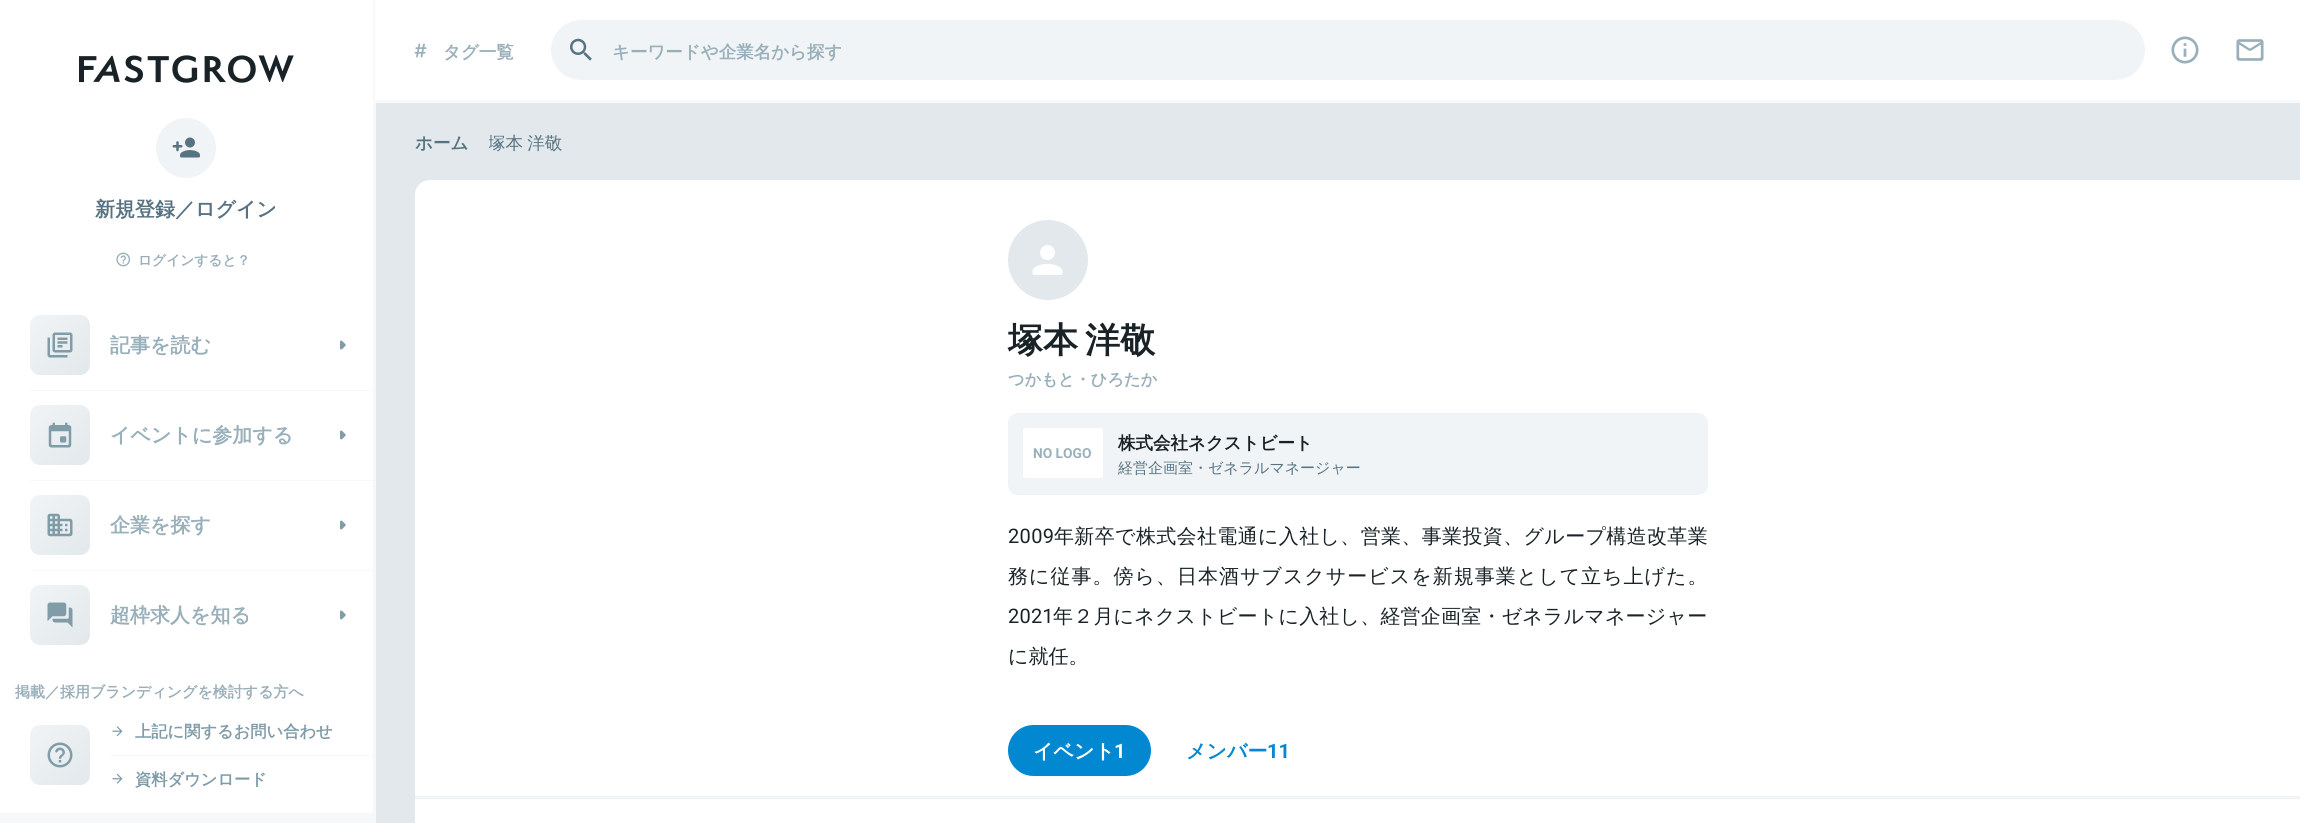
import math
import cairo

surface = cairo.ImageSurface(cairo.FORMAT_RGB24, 2300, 823)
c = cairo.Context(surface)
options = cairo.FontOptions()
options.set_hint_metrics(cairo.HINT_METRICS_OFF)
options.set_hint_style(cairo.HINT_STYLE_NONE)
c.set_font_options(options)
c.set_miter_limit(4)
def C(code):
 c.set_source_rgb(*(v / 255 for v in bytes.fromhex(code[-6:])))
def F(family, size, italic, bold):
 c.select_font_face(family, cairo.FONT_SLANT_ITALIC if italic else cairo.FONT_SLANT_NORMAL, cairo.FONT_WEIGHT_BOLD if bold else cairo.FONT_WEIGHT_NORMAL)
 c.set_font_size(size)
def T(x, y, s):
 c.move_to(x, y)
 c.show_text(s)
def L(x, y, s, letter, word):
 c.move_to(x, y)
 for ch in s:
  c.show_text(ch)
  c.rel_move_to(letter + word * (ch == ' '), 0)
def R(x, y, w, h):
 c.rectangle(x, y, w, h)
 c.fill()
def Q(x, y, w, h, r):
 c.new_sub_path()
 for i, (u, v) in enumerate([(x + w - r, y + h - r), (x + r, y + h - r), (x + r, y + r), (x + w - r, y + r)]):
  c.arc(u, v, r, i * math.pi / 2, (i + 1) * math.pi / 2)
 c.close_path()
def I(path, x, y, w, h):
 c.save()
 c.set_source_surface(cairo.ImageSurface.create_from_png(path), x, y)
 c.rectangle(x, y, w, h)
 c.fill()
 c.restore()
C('e2e8eb')
c.paint()
C('f7f8f9')
R(373,0,3,823)
C('ffffff')
R(375,0,1925,100)
C('f7f8f9')
R(375,100,1925,3)
I('1.png',414,43,13,15)
F('WenQuanYi Zen Hei',17.5,0,1)
C('99afba')
T(443,58,'タグ一覧')
C('f1f4f6')
Q(551,20,1594,60,30)
c.fill()
I('2.png',570,38,22,23)
C('99afba')
T(612,58,'キーワードや企業名から探す')
I('3.png',2171,36,28,28)
I('4.png',2236,39,28,22)
C('577381')
T(415,149,'ホーム')
c.save()
c.rectangle(489,128,74,27)
c.clip()
F('WenQuanYi Zen Hei Medium',17.5,0,0)
L(488,149,'塚本 洋敬',0,-1)
c.restore()
C('ffffff')
R(0,0,373,813)
I('5.png',79,55,215,28)
C('f1f4f6')
c.arc(186,148,30,0,2 * math.pi)
c.fill()
I('6.png',172,137,28,21)
F('WenQuanYi Zen Hei',20,0,1)
C('577381')
T(95,216,'新規登録／ログイン')
I('7.png',116,252,15,15)
F('WenQuanYi Zen Hei',13.75,0,1)
C('99afba')
T(138,265,'ログインすると？')
gradient = cairo.LinearGradient(30,315,90,375)
gradient.add_color_stop_rgba(0,0.945,0.957,0.965,1)
gradient.add_color_stop_rgba(1,0.886,0.91,0.922,1)
c.set_source(gradient)
Q(30,315,60,60,10)
c.fill()
I('8.png',47,332,26,26)
F('WenQuanYi Zen Hei',20,0,1)
C('99afba')
T(110,352,'記事を読む')
I('9.png',340,340,6,10)
C('f7f8f9')
R(30,390,343,1)
gradient = cairo.LinearGradient(30,405,90,465)
gradient.add_color_stop_rgba(0,0.945,0.957,0.965,1)
gradient.add_color_stop_rgba(1,0.886,0.91,0.922,1)
c.set_source(gradient)
Q(30,405,60,60,10)
c.fill()
I('10.png',48,422,24,26)
C('99afba')
T(110,442,'イベントに参加する')
I('9.png',340,430,6,10)
C('f7f8f9')
R(30,480,343,1)
gradient = cairo.LinearGradient(30,495,90,555)
gradient.add_color_stop_rgba(0,0.945,0.957,0.965,1)
gradient.add_color_stop_rgba(1,0.886,0.91,0.922,1)
c.set_source(gradient)
Q(30,495,60,60,10)
c.fill()
I('11.png',47,513,26,24)
C('99afba')
T(110,532,'企業を探す')
I('9.png',340,520,6,10)
C('f7f8f9')
R(30,570,343,1)
gradient = cairo.LinearGradient(30,585,90,645)
gradient.add_color_stop_rgba(0,0.945,0.957,0.965,1)
gradient.add_color_stop_rgba(1,0.886,0.91,0.922,1)
c.set_source(gradient)
Q(30,585,60,60,10)
c.fill()
I('12.png',47,602,26,26)
C('99afba')
T(110,622,'超枠求人を知る')
I('9.png',340,610,6,10)
F('WenQuanYi Zen Hei',15,0,1)
T(15,697,'掲載／採用ブランディングを検討する方へ')
gradient = cairo.LinearGradient(30,725,90,785)
gradient.add_color_stop_rgba(0,0.945,0.957,0.965,1)
gradient.add_color_stop_rgba(1,0.886,0.91,0.922,1)
c.set_source(gradient)
Q(30,725,60,60,10)
c.fill()
I('13.png',47,742,26,26)
I('14.png',112,726,11,11)
F('WenQuanYi Zen Hei',16.25,0,1)
C('819ca9')
T(135,737,'上記に関するお問い合わせ')
C('f7f8f9')
R(110,755,263,1)
I('15.png',112,773,11,11)
C('819ca9')
T(135,785,'資料ダウンロード')
C('f7f8f9')
R(0,813,373,10)
C('ffffff')
c.new_path()
c.move_to(430,180)
c.line_to(2300,180)
c.line_to(2300,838)
c.line_to(430,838)
c.curve_to(421.5,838,415,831.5,415,823)
c.line_to(415,195)
c.curve_to(415,186.5,421.5,180,430,180)
c.close_path()
c.fill()
C('e2e8eb')
c.arc(1048,260,40,0,2 * math.pi)
c.fill()
I('16.png',1032,245,31,30)
F('WenQuanYi Zen Hei',35,0,1)
C('192226')
T(1008,352,'塚本')
T(1085,352,'洋敬')
F('WenQuanYi Zen Hei',16.25,0,1)
C('99afba')
T(1008,385,'つかもと・ひろたか')
C('f1f4f6')
Q(1008,413,700,82,10)
c.fill()
C('ffffff')
Q(1023,428,80,50,2.5)
c.fill()
F('Roboto',13.75,0,1)
C('99afba')
T(1033,458,'NO LOGO')
F('WenQuanYi Zen Hei',17.5,0,1)
C('192226')
T(1118,449,'株式会社ネクストビート')
F('WenQuanYi Zen Hei Medium',15,0,0)
C('577381')
T(1118,473,'経営企画室・ゼネラルマネージャー')
F('Roboto',20,0,0)
C('192226')
L(1008,543,'2009',.35,0)
F('WenQuanYi Zen Hei Medium',20,0,0)
L(1054,543,'年新卒で株式会社電通に入社し、営業、事業投資、グループ構造改革業',.35,0)
L(1008,583,'務に従事。傍ら、日本酒サブスクサービスを新規事業として立ち上げた。',1,0)
F('Roboto',20,0,0)
L(1008,623,'2021',.2,0)
F('WenQuanYi Zen Hei Medium',20,0,0)
L(1053,623,'年２月にネクストビートに入社し、経営企画室・ゼネラルマネージャー',.2,0)
T(1008,663,'に就任。')
C('f1f4f6')
R(415,796,1885,3)
C('0288d1')
Q(1008,725,143,51,25.5)
c.fill()
F('WenQuanYi Zen Hei',20,0,1)
C('ffffff')
T(1033,758,'イベント')
F('Roboto',20,0,1)
T(1114,758,'1')
F('WenQuanYi Zen Hei',20,0,1)
C('0288d1')
T(1186,758,'メンバー')
F('Roboto',20,0,1)
T(1267,758,'11')
surface.write_to_png('o.png')
